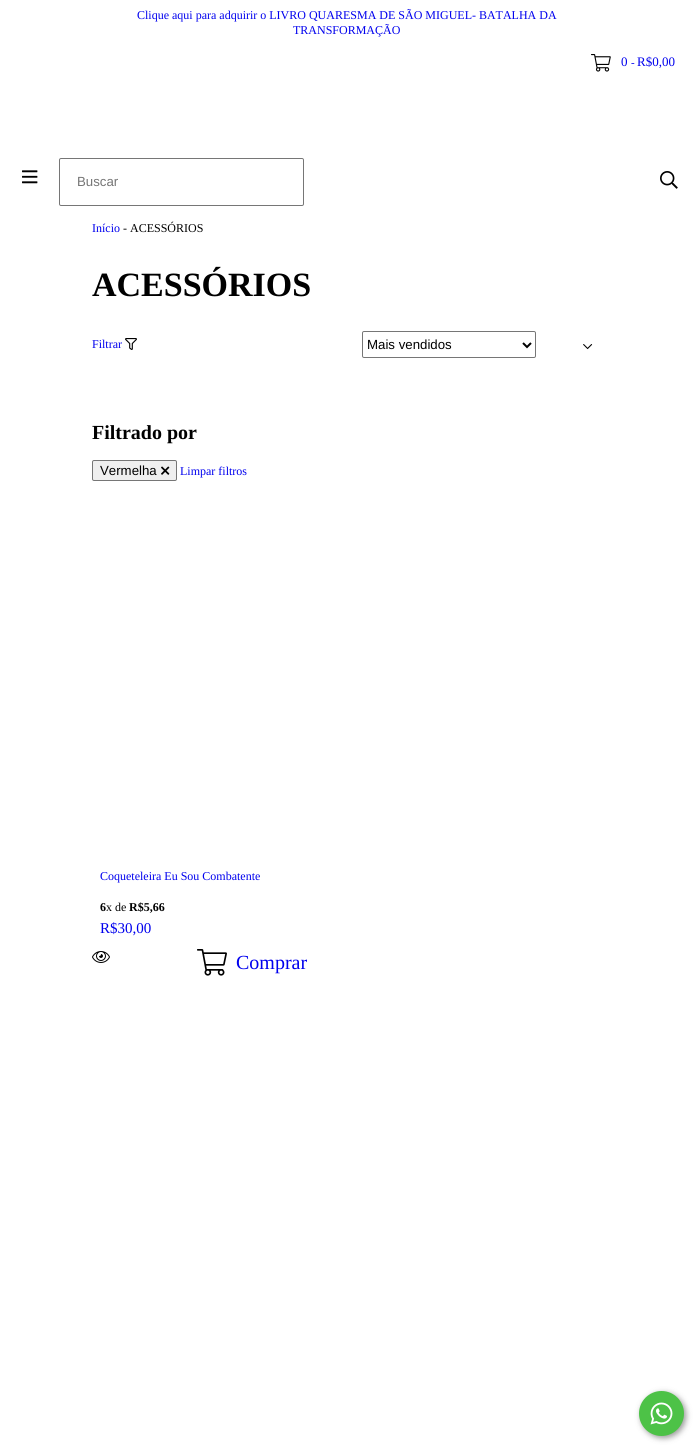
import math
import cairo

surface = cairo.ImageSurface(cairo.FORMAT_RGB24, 694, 1446)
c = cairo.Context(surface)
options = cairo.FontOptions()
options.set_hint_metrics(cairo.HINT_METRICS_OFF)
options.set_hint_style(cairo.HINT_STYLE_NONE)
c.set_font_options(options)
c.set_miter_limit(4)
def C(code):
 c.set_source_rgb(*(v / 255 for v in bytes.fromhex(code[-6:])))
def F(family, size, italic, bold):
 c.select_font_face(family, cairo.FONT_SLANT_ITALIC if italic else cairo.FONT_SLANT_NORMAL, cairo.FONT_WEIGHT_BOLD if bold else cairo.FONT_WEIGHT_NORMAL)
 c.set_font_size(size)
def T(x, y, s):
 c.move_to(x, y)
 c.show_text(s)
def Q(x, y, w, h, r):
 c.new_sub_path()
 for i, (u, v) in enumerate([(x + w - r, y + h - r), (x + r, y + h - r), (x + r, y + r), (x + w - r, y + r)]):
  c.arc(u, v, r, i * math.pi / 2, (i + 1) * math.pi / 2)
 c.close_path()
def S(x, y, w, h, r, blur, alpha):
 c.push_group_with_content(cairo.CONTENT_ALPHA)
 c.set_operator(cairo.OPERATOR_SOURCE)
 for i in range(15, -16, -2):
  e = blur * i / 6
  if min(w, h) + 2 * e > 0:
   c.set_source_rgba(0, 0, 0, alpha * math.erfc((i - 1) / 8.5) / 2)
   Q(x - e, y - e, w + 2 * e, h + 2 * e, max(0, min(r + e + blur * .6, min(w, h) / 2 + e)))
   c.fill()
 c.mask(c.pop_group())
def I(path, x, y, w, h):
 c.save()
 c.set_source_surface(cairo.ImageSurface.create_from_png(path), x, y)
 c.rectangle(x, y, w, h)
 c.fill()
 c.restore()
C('ffffff')
c.paint()
F('Liberation Serif',12,0,0)
C('0000ee')
T(137,19,'Clique aqui para adquirir o LIVRO QUARESMA DE SÃO MIGUEL- BATALHA DA')
T(293,34,'TRANSFORMAÇÃO')
I('1.png',591,54,20,18)
F('Liberation Serif',13,0,0)
T(621,66,'0')
F('Liberation Serif',11,0,0)
T(631,66,'-')
F('Liberation Serif',13,0,0)
T(637,66,'R$0,00')
I('2.png',22,170,16,14)
Q(59.5,158.5,244,47,1.5)
C('767676')
c.set_line_width(1)
c.stroke()
F('Liberation Sans',13.25,0,0)
C('757575')
T(77,186,'Buscar')
I('3.png',660,171,18,18)
F('Liberation Serif',12,0,0)
C('0000ee')
T(92,232,'Início')
C('000000')
T(123,232,'- ACESSÓRIOS')
F('Liberation Serif',34,0,1)
T(92,296,'ACESSÓRIOS')
F('Liberation Serif',12,0,0)
C('0000ee')
T(92,348,'Filtrar')
I('4.png',125,338,12,12)
Q(362.5,331.5,173,26,1.5)
C('767676')
c.stroke()
c.new_path()
c.move_to(523,343)
c.line_to(527,347)
c.line_to(531,343)
C('000000')
c.set_line_width(2)
c.stroke()
F('Liberation Sans',13.25,0,0)
T(367,349,'Mais vendidos')
I('5.png',583,344,10,6)
F('Liberation Serif',20,0,1)
T(92,439,'Filtrado por')
C('efefef')
Q(92.5,460.5,84,20,1.5)
c.fill_preserve()
C('767676')
c.set_line_width(1)
c.stroke()
F('Liberation Sans',13.25,0,0)
C('000000')
T(100,475,'Vermelha')
I('6.png',161,466,9,9)
F('Liberation Serif',12,0,0)
C('0000ee')
T(180,475,'Limpar filtros')
T(100,880,'Coqueteleira Eu Sou Combatente')
F('Liberation Serif',12,0,1)
C('000000')
T(100,911,'6')
F('Liberation Serif',12,0,0)
T(106,911,'x de')
F('Liberation Serif',12,0,1)
T(129,911,'R$5,66')
F('Liberation Serif',15,0,0)
C('0000ee')
T(100,933,'R$30,00')
I('7.png',92,951,18,12)
I('8.png',197,949,30,27)
F('Liberation Serif',20,0,0)
T(236,969,'Comprar')
C('000000')
S(641,1393,45,45,22.5,3,.4)
C('4dc247')
c.arc(661.5,1413.5,22.5,0,2 * math.pi)
c.fill()
I('9.png',650,1402,23,23)
surface.write_to_png('o.png')
